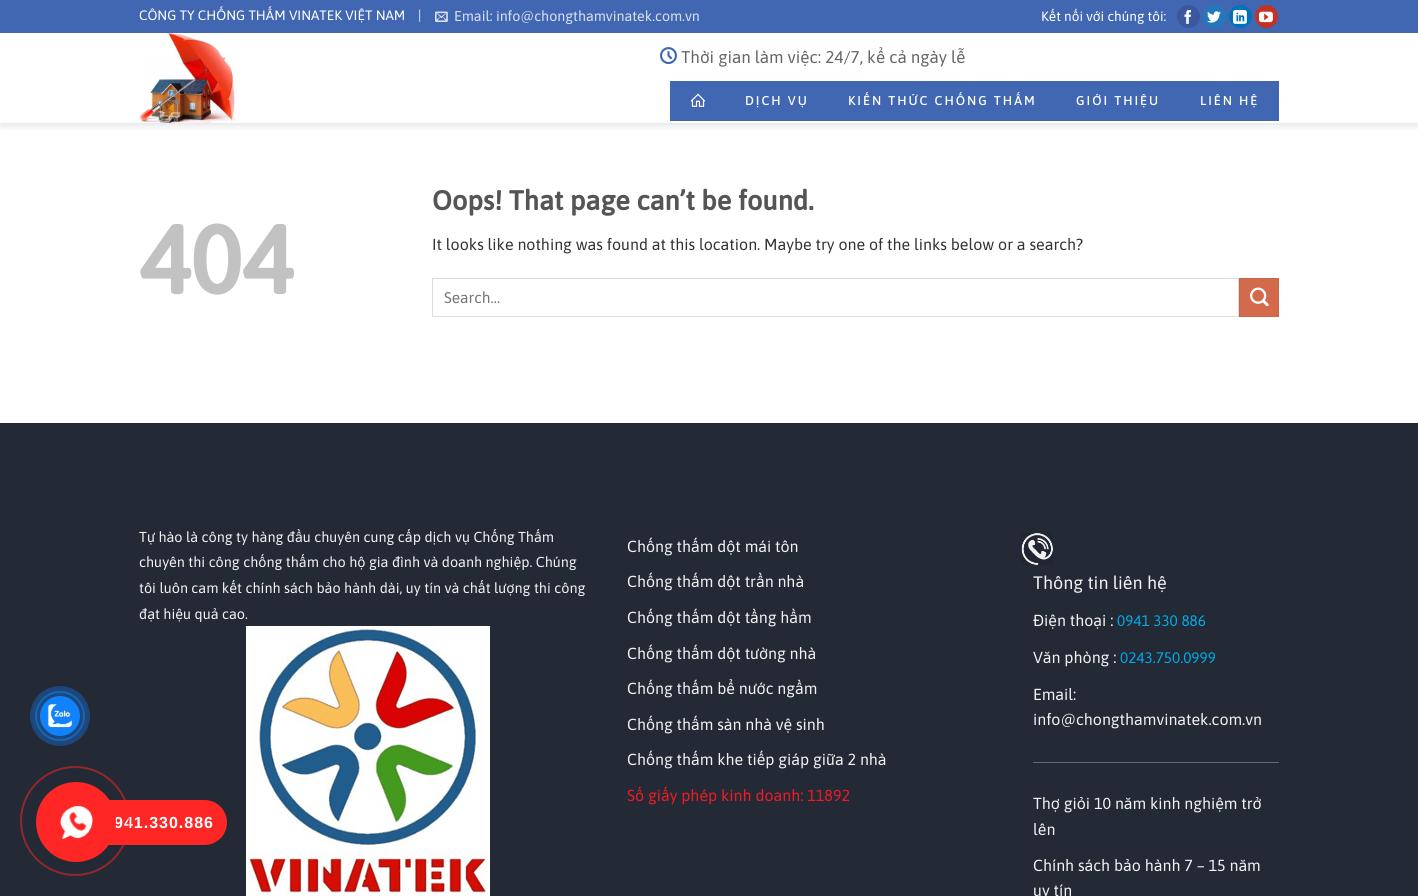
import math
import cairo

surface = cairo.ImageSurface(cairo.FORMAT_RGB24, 1418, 896)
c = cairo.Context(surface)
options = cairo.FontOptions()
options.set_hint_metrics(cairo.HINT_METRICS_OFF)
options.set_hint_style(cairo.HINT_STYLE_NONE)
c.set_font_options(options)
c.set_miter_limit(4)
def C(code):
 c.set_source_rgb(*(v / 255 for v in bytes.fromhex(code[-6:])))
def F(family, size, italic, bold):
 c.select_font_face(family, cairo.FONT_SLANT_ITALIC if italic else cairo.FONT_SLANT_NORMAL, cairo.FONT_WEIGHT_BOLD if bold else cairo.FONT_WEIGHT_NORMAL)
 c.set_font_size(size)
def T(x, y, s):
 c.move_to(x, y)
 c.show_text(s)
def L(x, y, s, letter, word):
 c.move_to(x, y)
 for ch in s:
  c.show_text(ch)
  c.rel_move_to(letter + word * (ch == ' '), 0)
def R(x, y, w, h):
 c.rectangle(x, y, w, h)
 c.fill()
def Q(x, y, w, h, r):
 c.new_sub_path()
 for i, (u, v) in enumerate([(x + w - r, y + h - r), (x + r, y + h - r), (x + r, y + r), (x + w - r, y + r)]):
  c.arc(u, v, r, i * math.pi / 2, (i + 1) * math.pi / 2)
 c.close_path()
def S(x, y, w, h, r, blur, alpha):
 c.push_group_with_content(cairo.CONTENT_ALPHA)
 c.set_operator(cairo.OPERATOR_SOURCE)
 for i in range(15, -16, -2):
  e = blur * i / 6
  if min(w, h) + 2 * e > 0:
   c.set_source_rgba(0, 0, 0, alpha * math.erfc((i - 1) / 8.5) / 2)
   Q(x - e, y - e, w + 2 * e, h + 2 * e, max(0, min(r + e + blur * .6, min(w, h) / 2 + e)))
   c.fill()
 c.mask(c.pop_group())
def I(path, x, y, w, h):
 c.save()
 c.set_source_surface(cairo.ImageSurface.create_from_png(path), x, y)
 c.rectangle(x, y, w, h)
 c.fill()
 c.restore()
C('ffffff')
c.paint()
c.save()
c.rectangle(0,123,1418,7)
c.clip()
C('000000')
S(1,1,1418,123,0,5,.15)
c.restore()
C('4267b2')
R(0,0,1418,33)
F('Asap',13.6,0,0)
C('ffffff')
T(139,20,'CÔNG TY CHỐNG THẤM VINATEK VIỆT NAM')
T(418,20,'|')
I('1.png',435,11,13,11)
F('Asap',14.25,0,0)
C('d9e1f0')
T(454,21,'Email: info@chongthamvinatek.com.vn')
F('Asap',13.6,0,0)
C('ffffff')
T(1041,21,'Kết nối với chúng tôi:')
C('3a589d')
c.new_path()
c.arc(1188.5,16.5,11,0,2 * math.pi)
c.fill_preserve()
c.set_line_width(1)
c.stroke()
I('2.png',1184,10,7,14)
C('2478ba')
c.arc(1214.5,16.5,11,0,2 * math.pi)
c.fill_preserve()
c.stroke()
I('3.png',1207,11,14,12)
C('0072b7')
c.arc(1240.5,16.5,11,0,2 * math.pi)
c.fill_preserve()
c.stroke()
I('4.png',1233,10,14,14)
C('c33223')
c.arc(1266.5,16.5,11,0,2 * math.pi)
c.fill_preserve()
c.stroke()
I('5.png',1259,11,14,12)
I('6.png',139,33,96,90)
I('7.png',660,47,17,18)
F('Asap',17,0,0)
C('666666')
T(681,63,'Thời gian làm việc: 24/7, kể cả ngày lễ')
C('4267b2')
R(670,81,609,40)
I('8.png',690,93,16,14)
F('Asap Medium',12.75,0,0)
C('ffffff')
L(745,105,'DỊCH VỤ',2,0)
L(848,105,'KIẾN THỨC CHỐNG THẤM',2,0)
L(1076,105,'GIỚI THIỆU',2,0)
L(1200,105,'LIÊN HỆ',2,0)
F('Asap',96,0,1)
C('c2c2c2')
T(139,294,'404')
F('Asap',27.25,0,1)
C('555555')
T(432,210,'Oops! That page can’t be found.')
F('Asap',16,0,0)
C('333333')
T(432,250,'It looks like nothing was found at this location. Maybe try one of the links below or a search?')
c.rectangle(432.5,278.5,806,38)
C('dddddd')
c.stroke()
F('Asap',15.5,0,0)
C('757575')
T(444,303,'Search…')
C('d26a4b')
c.rectangle(1239.5,278.5,39,38)
c.fill_preserve()
C('c86547')
c.stroke()
I('9.png',1250,287,19,20)
C('232935')
R(0,424,1418,472)
c.arc(60,716,24,0,2 * math.pi)
C('1a5699')
c.set_line_width(2)
c.stroke()
c.set_source_rgba(0.067,0.51,0.988,0.34)
c.arc(60,716,30,0,2 * math.pi)
c.fill()
C('1182fc')
c.arc(60,716,20,0,2 * math.pi)
c.fill()
I('10.png',47,704,25,24)
C('212732')
R(0,423,1418,1)
F('Asap',14.4,0,0)
C('f1f1f1')
T(139,542,'Tự hào là công ty hàng đầu chuyên cung cấp dịch vụ Chống Thấm')
T(139,567,'chuyên thi công chống thấm cho hộ gia đình và doanh nghiệp. Chúng')
T(139,593,'tôi luôn cam kết chính sách bảo hành dài, uy tín và chất lượng thi công')
T(139,619,'đạt hiệu quả cao.')
I('11.png',246,626,244,270)
F('Asap',16,0,0)
T(627,552,'Chống thấm dột mái tôn')
T(627,587,'Chống thấm dột trần nhà')
T(627,623,'Chống thấm dột tầng hầm')
T(627,659,'Chống thấm dột tường nhà')
T(627,694,'Chống thấm bể nước ngầm')
T(627,730,'Chống thấm sàn nhà vệ sinh')
T(627,765,'Chống thấm khe tiếp giáp giữa 2 nhà')
C('ed1c24')
T(627,801,'Số giấy phép kinh doanh: 11892')
I('12.png',1021,533,32,32)
F('Asap',18,0,0)
C('f1f1f1')
T(1033,589,'Thông tin liên hệ')
F('Asap',16,0,0)
T(1033,626,'Điện thoại :')
F('Asap',15.25,0,0)
C('00aae7')
T(1117,626,'0941 330 886')
F('Asap',16,0,0)
C('f1f1f1')
T(1033,663,'Văn phòng :')
F('Asap',15.25,0,0)
C('00aae7')
T(1120,663,'0243.750.0999')
F('Asap',16,0,0)
C('f1f1f1')
T(1033,700,'Email:')
T(1033,725,'info@chongthamvinatek.com.vn')
C('656972')
R(1033,762,246,1)
C('f1f1f1')
T(1033,809,'Thợ giỏi 10 năm kinh nghiệm trở')
T(1033,835,'lên')
T(1033,871,'Chính sách bảo hành 7 – 15 năm')
T(1033,896,'uy tín')
C('ff2626')
Q(62,800,165,45,22.5)
c.fill()
F('Liberation Sans',16,0,1)
C('ffffff')
L(114,828,'941.330.886',1,0)
c.new_path()
c.arc(75,821,54,0,2 * math.pi)
c.set_source_rgba(1,0.149,0.149,0.5)
c.stroke()
C('ff2626')
c.arc(76,822,40,0,2 * math.pi)
c.fill()
I('13.png',60,805,33,34)
surface.write_to_png('o.png')
